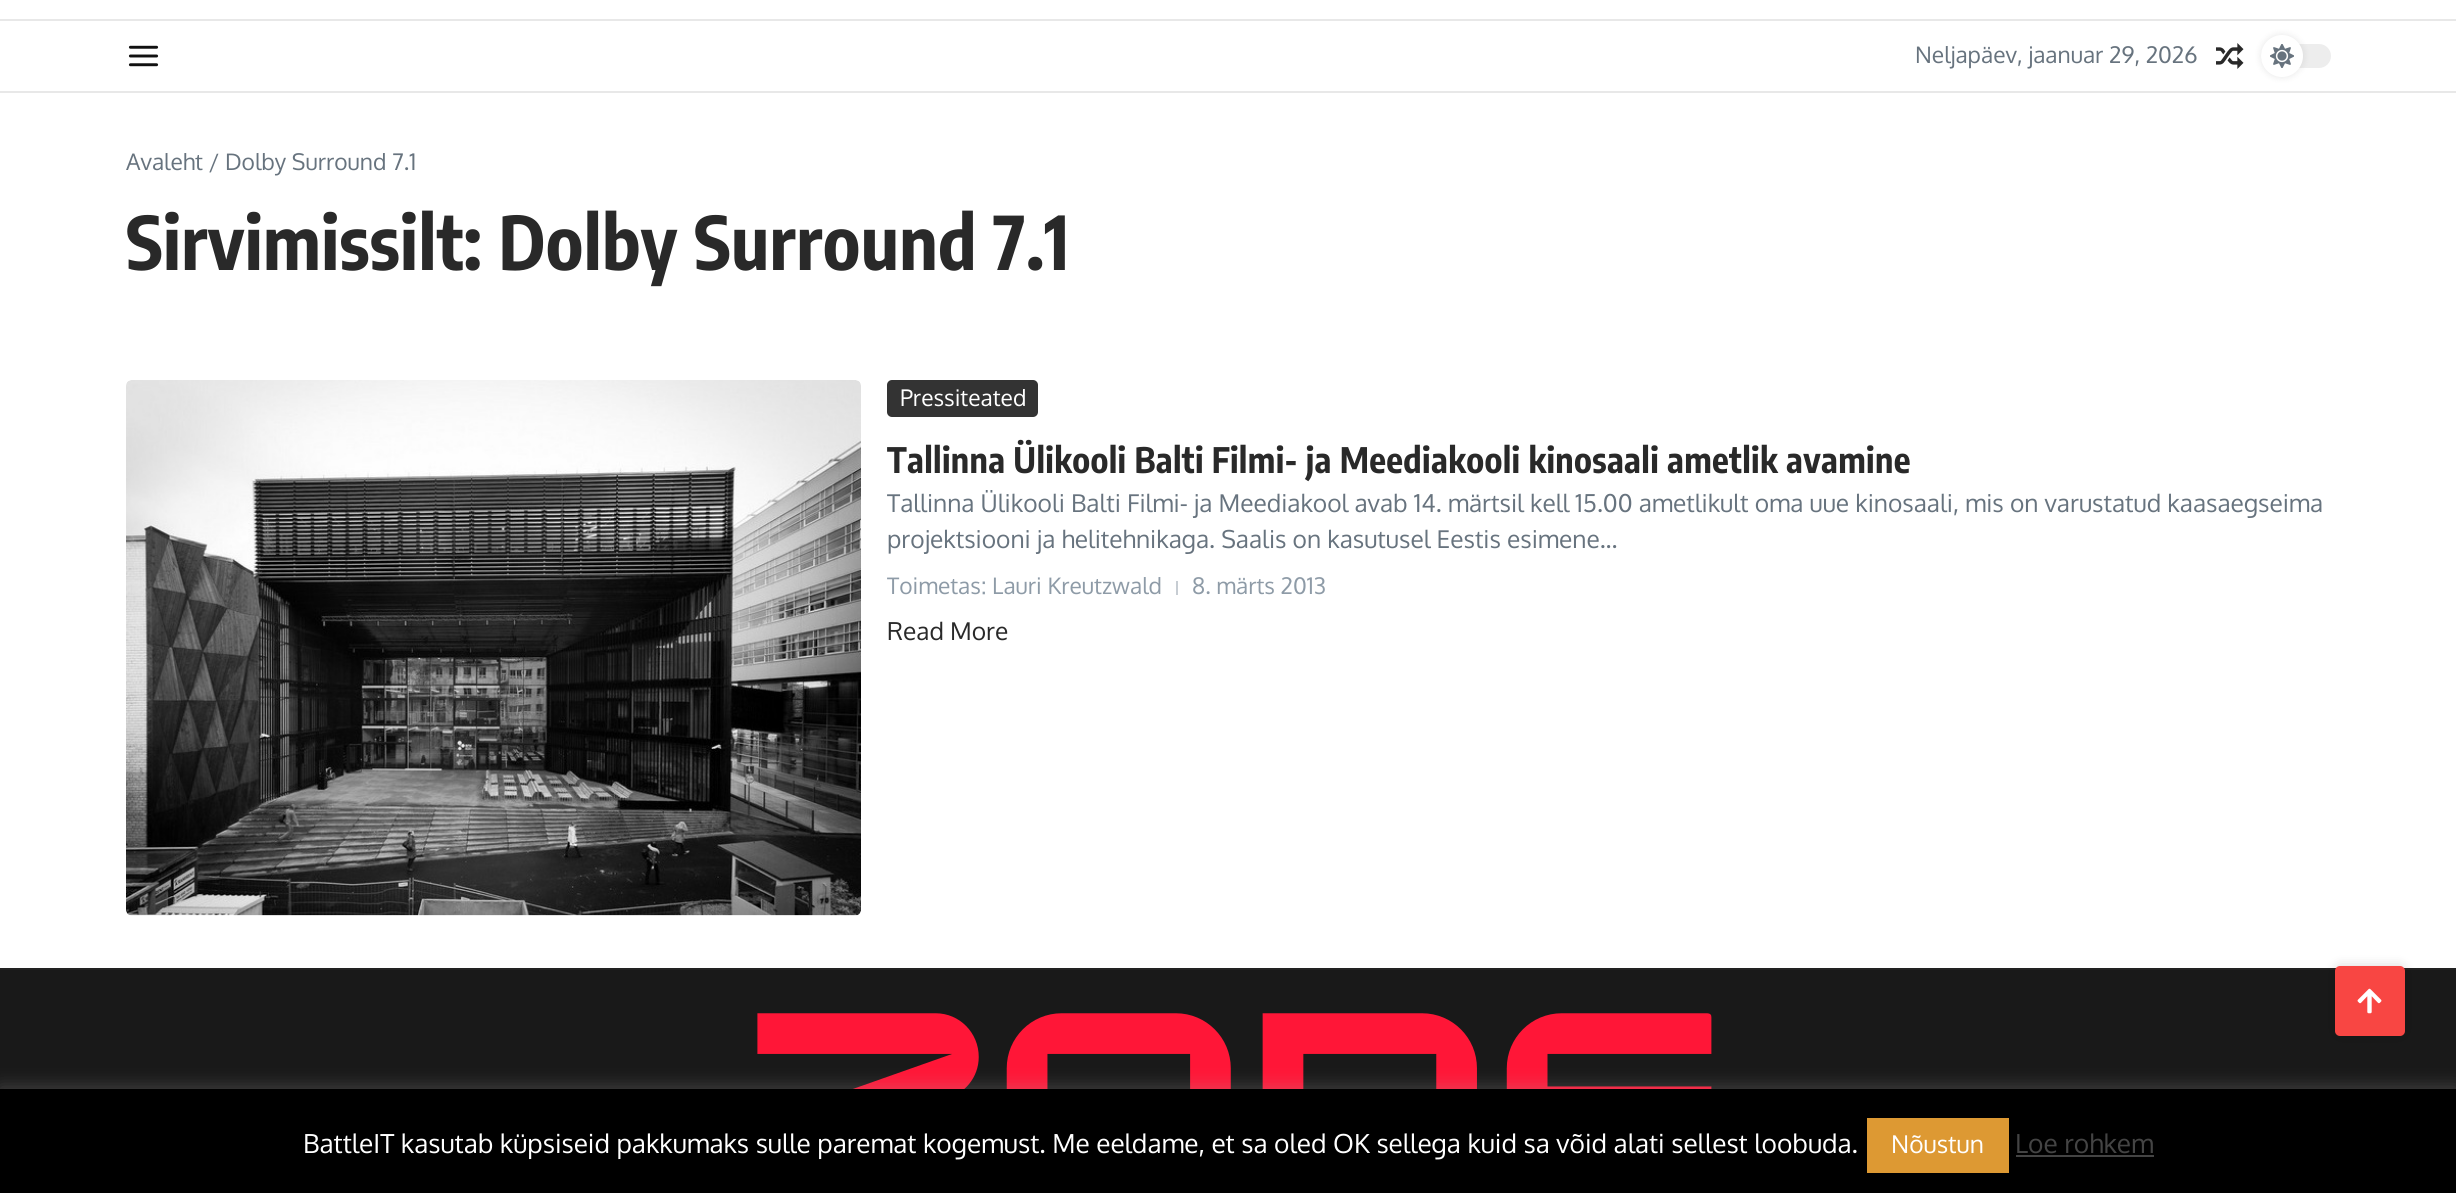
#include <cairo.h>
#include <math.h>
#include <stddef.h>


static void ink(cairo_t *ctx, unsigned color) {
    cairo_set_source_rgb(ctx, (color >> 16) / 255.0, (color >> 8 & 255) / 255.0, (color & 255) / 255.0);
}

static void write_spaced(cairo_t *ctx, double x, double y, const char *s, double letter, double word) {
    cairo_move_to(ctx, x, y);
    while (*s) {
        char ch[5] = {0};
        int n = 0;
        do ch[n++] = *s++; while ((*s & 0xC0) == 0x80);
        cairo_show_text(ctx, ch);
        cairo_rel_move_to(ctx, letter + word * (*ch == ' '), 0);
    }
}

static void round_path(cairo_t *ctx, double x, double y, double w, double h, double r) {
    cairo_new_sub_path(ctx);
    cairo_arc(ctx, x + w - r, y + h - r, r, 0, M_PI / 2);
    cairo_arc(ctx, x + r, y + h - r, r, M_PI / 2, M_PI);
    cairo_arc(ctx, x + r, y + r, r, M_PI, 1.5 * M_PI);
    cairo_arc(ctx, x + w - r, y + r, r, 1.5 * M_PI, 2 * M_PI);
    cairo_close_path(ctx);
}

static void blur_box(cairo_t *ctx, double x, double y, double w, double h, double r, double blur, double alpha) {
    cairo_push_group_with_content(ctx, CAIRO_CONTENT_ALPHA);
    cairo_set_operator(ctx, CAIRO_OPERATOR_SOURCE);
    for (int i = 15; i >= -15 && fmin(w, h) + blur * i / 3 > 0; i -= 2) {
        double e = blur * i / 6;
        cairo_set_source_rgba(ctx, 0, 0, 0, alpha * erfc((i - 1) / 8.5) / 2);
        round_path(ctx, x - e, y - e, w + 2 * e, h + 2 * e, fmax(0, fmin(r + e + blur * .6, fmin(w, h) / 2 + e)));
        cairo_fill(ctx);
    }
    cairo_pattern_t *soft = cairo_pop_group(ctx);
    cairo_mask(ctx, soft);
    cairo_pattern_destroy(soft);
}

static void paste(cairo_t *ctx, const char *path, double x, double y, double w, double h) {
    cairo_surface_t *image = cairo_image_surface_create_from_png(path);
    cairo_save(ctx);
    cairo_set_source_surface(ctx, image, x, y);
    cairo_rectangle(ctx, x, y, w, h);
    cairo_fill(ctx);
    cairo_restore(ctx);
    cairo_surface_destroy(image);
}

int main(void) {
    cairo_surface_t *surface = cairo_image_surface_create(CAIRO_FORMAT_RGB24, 2456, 1193);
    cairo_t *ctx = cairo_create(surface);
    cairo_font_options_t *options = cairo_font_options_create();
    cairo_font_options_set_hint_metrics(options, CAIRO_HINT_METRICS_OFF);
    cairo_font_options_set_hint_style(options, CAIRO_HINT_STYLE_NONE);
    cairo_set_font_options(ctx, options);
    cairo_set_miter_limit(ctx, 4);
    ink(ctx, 0xFFFFFF);
    cairo_paint(ctx);
    ink(ctx, 0xE8E8E8);
    cairo_rectangle(ctx, 0, 19, 2456, 2);
    cairo_fill(ctx);
    cairo_rectangle(ctx, 0, 91, 2456, 2);
    cairo_fill(ctx);
    paste(ctx, "media/1.png", 128, 45, 31, 22);
    cairo_select_font_face(ctx, "Oxygen", CAIRO_FONT_SLANT_NORMAL, CAIRO_FONT_WEIGHT_NORMAL);
    cairo_set_font_size(ctx, 22.75);
    ink(ctx, 0x67737E);
    cairo_move_to(ctx, 1915, 63);
    cairo_show_text(ctx, "Neljapäev, jaanuar 29, 2026");
    paste(ctx, "media/2.png", 2216, 43, 28, 26);
    ink(ctx, 0xEDEDED);
    round_path(ctx, 2261, 44, 70, 24, 12);
    cairo_fill(ctx);
    ink(ctx, 0x000000);
    blur_box(ctx, 2261, 35, 42, 42, 21, 3.5, 0.1);
    ink(ctx, 0xFFFFFF);
    cairo_arc(ctx, 2282, 56, 21, 0, 2 * M_PI);
    cairo_fill(ctx);
    paste(ctx, "media/3.png", 2270, 44, 24, 24);
    ink(ctx, 0x67737E);
    cairo_move_to(ctx, 126, 170);
    cairo_show_text(ctx, "Avaleht / Dolby Surround 7.1");
    cairo_select_font_face(ctx, "Encode Sans Condensed", CAIRO_FONT_SLANT_NORMAL, CAIRO_FONT_WEIGHT_BOLD);
    cairo_set_font_size(ctx, 73.5);
    ink(ctx, 0x292929);
    write_spaced(ctx, 126, 270, "Sirvimissilt: Dolby Surround 7.1", 0.35, 0);
    paste(ctx, "media/4.png", 126, 380, 735, 536);
    ink(ctx, 0x333333);
    round_path(ctx, 887, 380, 151, 37, 5);
    cairo_fill(ctx);
    cairo_select_font_face(ctx, "Oxygen", CAIRO_FONT_SLANT_NORMAL, CAIRO_FONT_WEIGHT_NORMAL);
    cairo_set_font_size(ctx, 22.75);
    ink(ctx, 0xFFFFFF);
    cairo_move_to(ctx, 900, 406);
    cairo_show_text(ctx, "Pressiteated");
    cairo_select_font_face(ctx, "Encode Sans Condensed", CAIRO_FONT_SLANT_NORMAL, CAIRO_FONT_WEIGHT_BOLD);
    cairo_set_font_size(ctx, 35);
    ink(ctx, 0x292929);
    write_spaced(ctx, 887, 473, "Tallinna Ülikooli Balti Filmi- ja Meediakooli kinosaali ametlik avamine", 0.35, 0);
    cairo_select_font_face(ctx, "Oxygen", CAIRO_FONT_SLANT_NORMAL, CAIRO_FONT_WEIGHT_NORMAL);
    cairo_set_font_size(ctx, 24.5);
    ink(ctx, 0x67737E);
    cairo_move_to(ctx, 887, 512);
    cairo_show_text(ctx, "Tallinna Ülikooli Balti Filmi- ja Meediakool avab 14. märtsil kell 15.00 ametlikult oma uue kinosaali, mis on varustatud kaasaegseima");
    cairo_move_to(ctx, 887, 548);
    cairo_show_text(ctx, "projektsiooni ja helitehnikaga. Saalis on kasutusel Eestis esimene...");
    cairo_set_font_size(ctx, 22.75);
    ink(ctx, 0x8E9BA7);
    cairo_move_to(ctx, 887, 594);
    cairo_show_text(ctx, "Toimetas: Lauri Kreutzwald");
    ink(ctx, 0xC7CDD3);
    cairo_rectangle(ctx, 1176, 581, 2, 14);
    cairo_fill(ctx);
    ink(ctx, 0x8E9BA7);
    cairo_move_to(ctx, 1192, 594);
    cairo_show_text(ctx, "8. märts 2013");
    cairo_set_font_size(ctx, 24.5);
    ink(ctx, 0x292929);
    cairo_move_to(ctx, 887, 640);
    cairo_show_text(ctx, "Read More");
    ink(ctx, 0x191919);
    cairo_rectangle(ctx, 0, 970, 2456, 119);
    cairo_fill(ctx);
    ink(ctx, 0x222222);
    cairo_rectangle(ctx, 0, 968, 2456, 2);
    cairo_fill(ctx);
    ink(ctx, 0x000000);
    blur_box(ctx, 2335, 966, 70, 70, 5, 6, 0.15);
    ink(ctx, 0xF84643);
    round_path(ctx, 2335, 966, 70, 70, 5);
    cairo_fill(ctx);
    paste(ctx, "media/5.png", 2357, 988, 25, 26);
    paste(ctx, "media/6.png", 757, 1013, 955, 76);
    ink(ctx, 0xACABAB);
    blur_box(ctx, 0, 1087, 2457, 105, 0, 9, 0.3);
    ink(ctx, 0x000000);
    cairo_rectangle(ctx, 0, 1089, 2456, 104);
    cairo_fill(ctx);
    cairo_set_font_size(ctx, 26.25);
    ink(ctx, 0xFFFFFF);
    cairo_move_to(ctx, 303, 1153);
    cairo_show_text(ctx, "BattleIT kasutab küpsiseid pakkumaks sulle paremat kogemust. Me eeldame, et sa oled OK sellega kuid sa võid alati sellest loobuda.");
    ink(ctx, 0xDD9933);
    cairo_rectangle(ctx, 1867, 1118, 142, 55);
    cairo_fill(ctx);
    cairo_set_font_size(ctx, 24.5);
    ink(ctx, 0xFFFFFF);
    cairo_move_to(ctx, 1891, 1153);
    cairo_show_text(ctx, "Nõustun");
    cairo_set_font_size(ctx, 26.25);
    ink(ctx, 0x444444);
    cairo_move_to(ctx, 2015, 1153);
    cairo_show_text(ctx, "Loe rohkem");
    cairo_rectangle(ctx, 2016, 1155, 138, 2);
    cairo_fill(ctx);
    cairo_surface_write_to_png(surface, "image.png");
    cairo_font_options_destroy(options);
    cairo_destroy(ctx);
    cairo_surface_destroy(surface);
    return 0;
}
